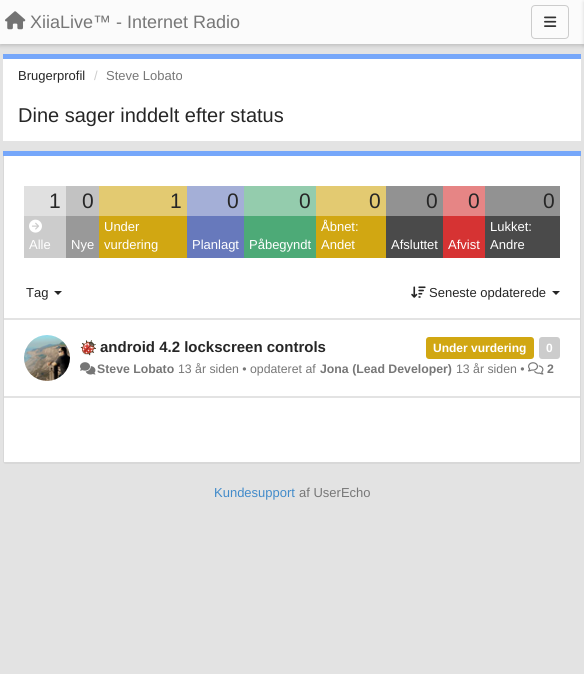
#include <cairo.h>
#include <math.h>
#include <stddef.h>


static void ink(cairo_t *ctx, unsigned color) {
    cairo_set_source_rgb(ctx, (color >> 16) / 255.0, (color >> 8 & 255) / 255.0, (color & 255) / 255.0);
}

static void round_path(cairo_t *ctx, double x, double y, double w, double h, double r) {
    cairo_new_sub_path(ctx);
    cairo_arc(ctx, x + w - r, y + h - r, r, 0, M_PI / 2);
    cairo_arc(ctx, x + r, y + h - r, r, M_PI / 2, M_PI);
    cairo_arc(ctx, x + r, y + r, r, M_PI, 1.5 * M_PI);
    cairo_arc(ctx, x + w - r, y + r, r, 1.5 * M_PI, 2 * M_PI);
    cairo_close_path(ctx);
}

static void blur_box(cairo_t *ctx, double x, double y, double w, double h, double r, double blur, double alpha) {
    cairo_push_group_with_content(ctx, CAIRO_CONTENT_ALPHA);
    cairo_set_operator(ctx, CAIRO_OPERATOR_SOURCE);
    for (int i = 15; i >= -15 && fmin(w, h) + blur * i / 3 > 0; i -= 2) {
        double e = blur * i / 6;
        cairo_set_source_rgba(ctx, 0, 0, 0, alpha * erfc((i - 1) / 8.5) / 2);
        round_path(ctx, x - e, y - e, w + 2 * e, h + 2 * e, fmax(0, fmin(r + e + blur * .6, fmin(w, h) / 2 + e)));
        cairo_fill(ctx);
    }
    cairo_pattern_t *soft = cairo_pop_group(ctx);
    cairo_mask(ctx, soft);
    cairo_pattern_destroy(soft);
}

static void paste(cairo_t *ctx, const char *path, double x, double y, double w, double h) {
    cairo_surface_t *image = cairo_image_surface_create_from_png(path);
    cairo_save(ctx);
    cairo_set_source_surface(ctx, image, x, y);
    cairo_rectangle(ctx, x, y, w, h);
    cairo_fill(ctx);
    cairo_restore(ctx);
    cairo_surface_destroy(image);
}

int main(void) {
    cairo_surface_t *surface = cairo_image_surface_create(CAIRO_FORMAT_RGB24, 584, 674);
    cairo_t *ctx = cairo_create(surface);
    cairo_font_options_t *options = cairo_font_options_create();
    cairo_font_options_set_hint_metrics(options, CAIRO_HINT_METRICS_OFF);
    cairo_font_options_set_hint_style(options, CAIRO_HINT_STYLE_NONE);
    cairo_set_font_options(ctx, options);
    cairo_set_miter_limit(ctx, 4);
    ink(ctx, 0xE3E3E3);
    cairo_paint(ctx);
    ink(ctx, 0x000000);
    blur_box(ctx, 0, 2, 584, 44, 0, 2, 0.15);
    ink(ctx, 0xFBFBFB);
    cairo_rectangle(ctx, 0, 0, 584, 44);
    cairo_fill(ctx);
    paste(ctx, "media/1.png", 5, 11, 21, 19);
    cairo_select_font_face(ctx, "Liberation Sans", CAIRO_FONT_SLANT_NORMAL, CAIRO_FONT_WEIGHT_NORMAL);
    cairo_set_font_size(ctx, 18);
    ink(ctx, 0x777777);
    cairo_move_to(ctx, 30, 28);
    cairo_show_text(ctx, "XiiaLive™ - Internet Radio");
    round_path(ctx, 531.5, 5.5, 37, 33, 3.5);
    ink(ctx, 0xCCCCCC);
    cairo_set_line_width(ctx, 1);
    cairo_stroke(ctx);
    paste(ctx, "media/2.png", 544, 16, 13, 11);
    ink(ctx, 0x000000);
    blur_box(ctx, 584, 2, 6, 44, 0, 2, 0.15);
    ink(ctx, 0xFFFFFF);
    cairo_rectangle(ctx, 3, 59, 578, 82);
    cairo_fill(ctx);
    ink(ctx, 0x76A7FA);
    cairo_rectangle(ctx, 3, 54, 578, 5);
    cairo_fill(ctx);
    cairo_set_font_size(ctx, 13);
    ink(ctx, 0x262626);
    cairo_move_to(ctx, 18, 80);
    cairo_show_text(ctx, "Brugerprofil");
    ink(ctx, 0xCCCCCC);
    cairo_move_to(ctx, 94, 80);
    cairo_show_text(ctx, "/");
    ink(ctx, 0x777777);
    cairo_move_to(ctx, 106, 80);
    cairo_show_text(ctx, "Steve Lobato");
    cairo_set_font_size(ctx, 20);
    ink(ctx, 0x262626);
    cairo_move_to(ctx, 18, 122);
    cairo_show_text(ctx, "Dine sager inddelt efter status");
    ink(ctx, 0x76A7FA);
    cairo_rectangle(ctx, 3, 151, 578, 5);
    cairo_fill(ctx);
    ink(ctx, 0xD8D8D8);
    cairo_set_fill_rule(ctx, CAIRO_FILL_RULE_EVEN_ODD);
    cairo_new_path(ctx);
    cairo_move_to(ctx, 3, 156);
    cairo_line_to(ctx, 581, 156);
    cairo_line_to(ctx, 581, 461);
    cairo_curve_to(ctx, 581, 463, 580, 464, 578, 464);
    cairo_line_to(ctx, 6, 464);
    cairo_curve_to(ctx, 4, 464, 3, 463, 3, 461);
    cairo_close_path(ctx);
    cairo_move_to(ctx, 4, 156);
    cairo_line_to(ctx, 580, 156);
    cairo_line_to(ctx, 580, 461);
    cairo_curve_to(ctx, 580, 462, 579, 462, 578, 462);
    cairo_line_to(ctx, 6, 462);
    cairo_curve_to(ctx, 5, 462, 4, 462, 4, 461);
    cairo_close_path(ctx);
    cairo_fill(ctx);
    ink(ctx, 0xFFFFFF);
    cairo_rectangle(ctx, 4, 156, 576, 162);
    cairo_fill(ctx);
    ink(ctx, 0xE0E0E0);
    cairo_rectangle(ctx, 24, 186, 42, 30);
    cairo_fill(ctx);
    cairo_set_font_size(ctx, 21);
    ink(ctx, 0x262626);
    cairo_move_to(ctx, 49, 208);
    cairo_show_text(ctx, "1");
    ink(ctx, 0xC2C2C2);
    cairo_rectangle(ctx, 66, 186, 33, 30);
    cairo_fill(ctx);
    ink(ctx, 0x262626);
    cairo_move_to(ctx, 82, 208);
    cairo_show_text(ctx, "0");
    ink(ctx, 0xE3CA71);
    cairo_rectangle(ctx, 99, 186, 88, 30);
    cairo_fill(ctx);
    ink(ctx, 0x262626);
    cairo_move_to(ctx, 170, 208);
    cairo_show_text(ctx, "1");
    ink(ctx, 0xA4AFD7);
    cairo_rectangle(ctx, 187, 186, 57, 30);
    cairo_fill(ctx);
    ink(ctx, 0x262626);
    cairo_move_to(ctx, 227, 208);
    cairo_show_text(ctx, "0");
    ink(ctx, 0x94CCAD);
    cairo_rectangle(ctx, 244, 186, 72, 30);
    cairo_fill(ctx);
    ink(ctx, 0x262626);
    cairo_move_to(ctx, 299, 208);
    cairo_show_text(ctx, "0");
    ink(ctx, 0xE3CA71);
    cairo_rectangle(ctx, 316, 186, 70, 30);
    cairo_fill(ctx);
    ink(ctx, 0x262626);
    cairo_move_to(ctx, 369, 208);
    cairo_show_text(ctx, "0");
    ink(ctx, 0x929292);
    cairo_rectangle(ctx, 386, 186, 57, 30);
    cairo_fill(ctx);
    ink(ctx, 0x262626);
    cairo_move_to(ctx, 426, 208);
    cairo_show_text(ctx, "0");
    ink(ctx, 0xE68585);
    cairo_rectangle(ctx, 443, 186, 42, 30);
    cairo_fill(ctx);
    ink(ctx, 0x262626);
    cairo_move_to(ctx, 468, 208);
    cairo_show_text(ctx, "0");
    ink(ctx, 0x929292);
    cairo_rectangle(ctx, 485, 186, 75, 30);
    cairo_fill(ctx);
    ink(ctx, 0x262626);
    cairo_move_to(ctx, 543, 208);
    cairo_show_text(ctx, "0");
    ink(ctx, 0xCCCCCC);
    cairo_rectangle(ctx, 24, 216, 42, 42);
    cairo_fill(ctx);
    paste(ctx, "media/3.png", 29, 219, 13, 14);
    cairo_set_font_size(ctx, 13);
    ink(ctx, 0xFFFFFF);
    cairo_move_to(ctx, 29, 249);
    cairo_show_text(ctx, "Alle");
    ink(ctx, 0x999999);
    cairo_rectangle(ctx, 66, 216, 33, 42);
    cairo_fill(ctx);
    ink(ctx, 0xFFFFFF);
    cairo_move_to(ctx, 71, 249);
    cairo_show_text(ctx, "Nye");
    ink(ctx, 0xD1A712);
    cairo_rectangle(ctx, 99, 216, 88, 42);
    cairo_fill(ctx);
    ink(ctx, 0xFFFFFF);
    cairo_move_to(ctx, 104, 231);
    cairo_show_text(ctx, "Under");
    cairo_move_to(ctx, 104, 249);
    cairo_show_text(ctx, "vurdering");
    ink(ctx, 0x6779BC);
    cairo_rectangle(ctx, 187, 216, 57, 42);
    cairo_fill(ctx);
    ink(ctx, 0xFFFFFF);
    cairo_move_to(ctx, 192, 249);
    cairo_show_text(ctx, "Planlagt");
    ink(ctx, 0x4DAA77);
    cairo_rectangle(ctx, 244, 216, 72, 42);
    cairo_fill(ctx);
    ink(ctx, 0xFFFFFF);
    cairo_move_to(ctx, 249, 249);
    cairo_show_text(ctx, "Påbegyndt");
    ink(ctx, 0xD1A712);
    cairo_rectangle(ctx, 316, 216, 70, 42);
    cairo_fill(ctx);
    ink(ctx, 0xFFFFFF);
    cairo_move_to(ctx, 321, 231);
    cairo_show_text(ctx, "Åbnet:");
    cairo_move_to(ctx, 321, 249);
    cairo_show_text(ctx, "Andet");
    ink(ctx, 0x4A4A4A);
    cairo_rectangle(ctx, 386, 216, 57, 42);
    cairo_fill(ctx);
    ink(ctx, 0xFFFFFF);
    cairo_move_to(ctx, 391, 249);
    cairo_show_text(ctx, "Afsluttet");
    ink(ctx, 0xD63333);
    cairo_rectangle(ctx, 443, 216, 42, 42);
    cairo_fill(ctx);
    ink(ctx, 0xFFFFFF);
    cairo_move_to(ctx, 448, 249);
    cairo_show_text(ctx, "Afvist");
    ink(ctx, 0x4A4A4A);
    cairo_rectangle(ctx, 485, 216, 75, 42);
    cairo_fill(ctx);
    ink(ctx, 0xFFFFFF);
    cairo_move_to(ctx, 490, 231);
    cairo_show_text(ctx, "Lukket:");
    cairo_move_to(ctx, 490, 249);
    cairo_show_text(ctx, "Andre");
    ink(ctx, 0x262626);
    cairo_move_to(ctx, 26, 297);
    cairo_show_text(ctx, "Tag");
    cairo_set_fill_rule(ctx, CAIRO_FILL_RULE_WINDING);
    cairo_new_path(ctx);
    cairo_move_to(ctx, 54, 291);
    cairo_line_to(ctx, 62, 291);
    cairo_line_to(ctx, 58, 295);
    cairo_close_path(ctx);
    cairo_fill(ctx);
    paste(ctx, "media/4.png", 411, 286, 15, 12);
    cairo_move_to(ctx, 429, 297);
    cairo_show_text(ctx, "Seneste opdaterede");
    cairo_new_path(ctx);
    cairo_move_to(ctx, 552, 291);
    cairo_line_to(ctx, 560, 291);
    cairo_line_to(ctx, 556, 295);
    cairo_close_path(ctx);
    cairo_fill(ctx);
    ink(ctx, 0xFFFFFF);
    cairo_rectangle(ctx, 4, 320, 576, 76);
    cairo_fill(ctx);
    paste(ctx, "media/5.png", 24, 335, 46, 46);
    paste(ctx, "media/6.png", 80, 340, 16, 16);
    cairo_select_font_face(ctx, "Liberation Sans", CAIRO_FONT_SLANT_NORMAL, CAIRO_FONT_WEIGHT_BOLD);
    cairo_set_font_size(ctx, 15);
    ink(ctx, 0x262626);
    cairo_move_to(ctx, 100, 352);
    cairo_show_text(ctx, "android 4.2 lockscreen controls");
    ink(ctx, 0xD1A712);
    round_path(ctx, 426, 337, 108, 22, 3);
    cairo_fill(ctx);
    cairo_set_font_size(ctx, 12);
    ink(ctx, 0xFFFFFF);
    cairo_move_to(ctx, 433, 352);
    cairo_show_text(ctx, "Under vurdering");
    ink(ctx, 0xCCCCCC);
    round_path(ctx, 539, 337, 21, 22, 3);
    cairo_fill(ctx);
    ink(ctx, 0xFFFFFF);
    cairo_move_to(ctx, 546, 352);
    cairo_show_text(ctx, "0");
    paste(ctx, "media/7.png", 80, 362, 16, 13);
    cairo_set_font_size(ctx, 12.3);
    ink(ctx, 0x777777);
    cairo_move_to(ctx, 97, 373);
    cairo_show_text(ctx, "Steve Lobato");
    cairo_select_font_face(ctx, "Liberation Sans", CAIRO_FONT_SLANT_NORMAL, CAIRO_FONT_WEIGHT_NORMAL);
    cairo_move_to(ctx, 178, 373);
    cairo_show_text(ctx, "13 år siden • opdateret af");
    cairo_select_font_face(ctx, "Liberation Sans", CAIRO_FONT_SLANT_NORMAL, CAIRO_FONT_WEIGHT_BOLD);
    cairo_move_to(ctx, 320, 373);
    cairo_show_text(ctx, "Jona (Lead Developer)");
    cairo_select_font_face(ctx, "Liberation Sans", CAIRO_FONT_SLANT_NORMAL, CAIRO_FONT_WEIGHT_NORMAL);
    cairo_move_to(ctx, 456, 373);
    cairo_show_text(ctx, "13 år siden •");
    paste(ctx, "media/8.png", 528, 362, 16, 13);
    cairo_select_font_face(ctx, "Liberation Sans", CAIRO_FONT_SLANT_NORMAL, CAIRO_FONT_WEIGHT_BOLD);
    cairo_move_to(ctx, 547, 373);
    cairo_show_text(ctx, "2");
    ink(ctx, 0xFFFFFF);
    cairo_rectangle(ctx, 4, 398, 576, 64);
    cairo_fill(ctx);
    cairo_select_font_face(ctx, "Liberation Sans", CAIRO_FONT_SLANT_NORMAL, CAIRO_FONT_WEIGHT_NORMAL);
    cairo_set_font_size(ctx, 13);
    ink(ctx, 0x428BCA);
    cairo_move_to(ctx, 214, 497);
    cairo_show_text(ctx, "Kundesupport");
    ink(ctx, 0x777777);
    cairo_move_to(ctx, 299, 497);
    cairo_show_text(ctx, "af UserEcho");
    cairo_surface_write_to_png(surface, "image.png");
    cairo_font_options_destroy(options);
    cairo_destroy(ctx);
    cairo_surface_destroy(surface);
    return 0;
}
